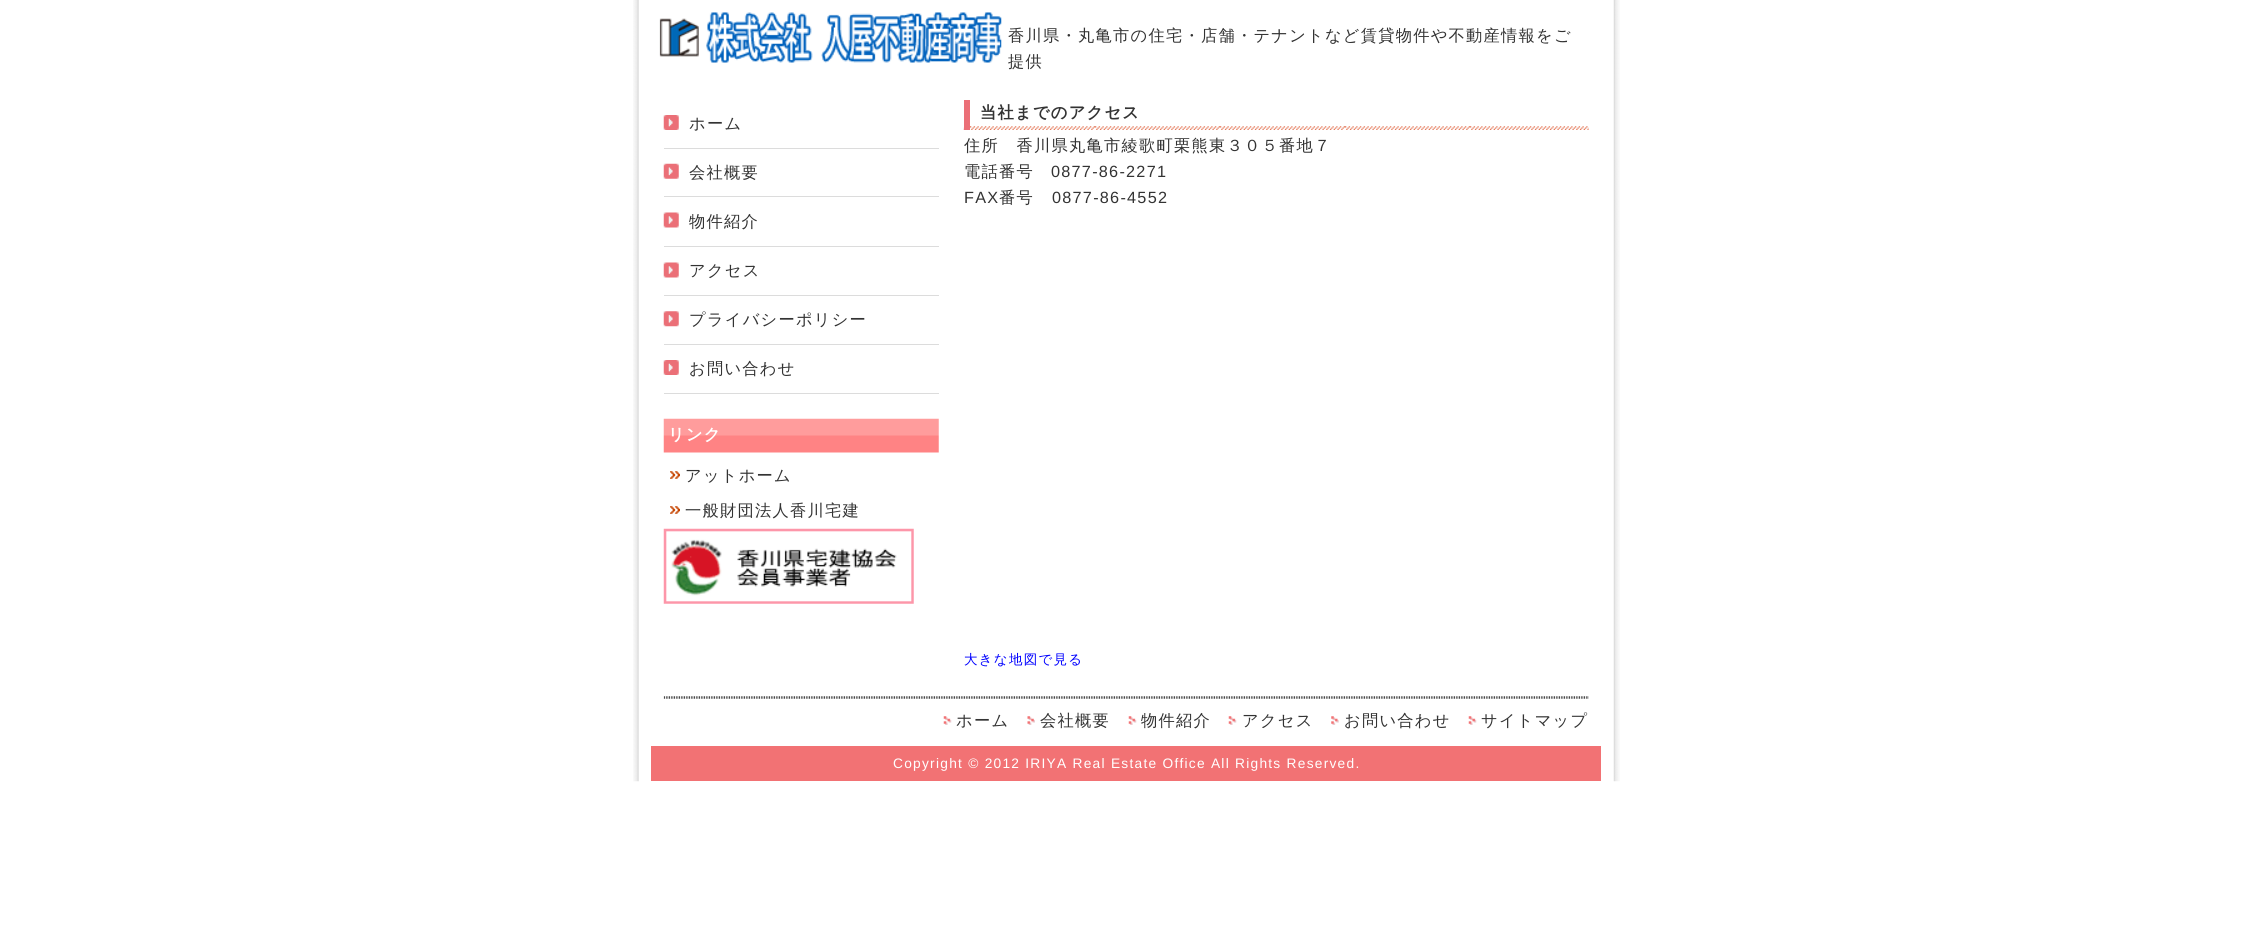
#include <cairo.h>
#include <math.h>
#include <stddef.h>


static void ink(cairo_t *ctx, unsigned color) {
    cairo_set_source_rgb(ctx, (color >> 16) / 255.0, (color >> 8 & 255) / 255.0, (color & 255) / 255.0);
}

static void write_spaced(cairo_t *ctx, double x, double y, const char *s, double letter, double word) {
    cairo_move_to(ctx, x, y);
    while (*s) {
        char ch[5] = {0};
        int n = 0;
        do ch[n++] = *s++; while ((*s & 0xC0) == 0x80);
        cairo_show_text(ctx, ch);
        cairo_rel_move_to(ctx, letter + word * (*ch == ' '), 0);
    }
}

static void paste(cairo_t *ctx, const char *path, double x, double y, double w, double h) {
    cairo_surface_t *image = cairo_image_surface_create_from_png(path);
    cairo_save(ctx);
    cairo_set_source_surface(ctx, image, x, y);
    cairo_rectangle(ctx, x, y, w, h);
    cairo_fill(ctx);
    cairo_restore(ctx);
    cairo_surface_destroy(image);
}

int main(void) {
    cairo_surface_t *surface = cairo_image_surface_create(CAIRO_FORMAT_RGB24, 2252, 952);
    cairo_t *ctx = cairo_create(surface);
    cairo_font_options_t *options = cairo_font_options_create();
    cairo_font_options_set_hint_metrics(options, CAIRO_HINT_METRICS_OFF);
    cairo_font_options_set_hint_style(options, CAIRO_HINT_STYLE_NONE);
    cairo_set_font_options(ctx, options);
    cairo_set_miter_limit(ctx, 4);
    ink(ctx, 0xFFFFFF);
    cairo_paint(ctx);
    paste(ctx, "media/1.png", 633, 0, 6, 782);
    paste(ctx, "media/2.png", 1613, 0, 7, 782);
    paste(ctx, "media/3.png", 659, 12, 343, 51);
    cairo_select_font_face(ctx, "WenQuanYi Zen Hei Medium", CAIRO_FONT_SLANT_NORMAL, CAIRO_FONT_WEIGHT_NORMAL);
    cairo_set_font_size(ctx, 16.25);
    ink(ctx, 0x333333);
    write_spaced(ctx, 1008, 41, "香川県・丸亀市の住宅・店舗・テナントなど賃貸物件や不動産情報をご", 1.25, 0);
    write_spaced(ctx, 1008, 67, "提供", 1.25, 0);
    paste(ctx, "media/4.png", 663, 115, 16, 15);
    ink(ctx, 0xDCDCDC);
    cairo_rectangle(ctx, 664, 148, 275, 1);
    cairo_fill(ctx);
    ink(ctx, 0x333333);
    write_spaced(ctx, 689, 129, "ホーム", 1.25, 0);
    paste(ctx, "media/5.png", 663, 163, 16, 16);
    ink(ctx, 0xDCDCDC);
    cairo_rectangle(ctx, 664, 196, 275, 1);
    cairo_fill(ctx);
    ink(ctx, 0x333333);
    write_spaced(ctx, 689, 178, "会社概要", 1.25, 0);
    paste(ctx, "media/6.png", 663, 212, 16, 16);
    ink(ctx, 0xDCDCDC);
    cairo_rectangle(ctx, 664, 246, 275, 1);
    cairo_fill(ctx);
    ink(ctx, 0x333333);
    write_spaced(ctx, 689, 227, "物件紹介", 1.25, 0);
    paste(ctx, "media/6.png", 663, 262, 16, 16);
    ink(ctx, 0xDCDCDC);
    cairo_rectangle(ctx, 664, 295, 275, 1);
    cairo_fill(ctx);
    ink(ctx, 0x333333);
    write_spaced(ctx, 689, 276, "アクセス", 1.25, 0);
    paste(ctx, "media/7.png", 663, 311, 16, 16);
    ink(ctx, 0xDCDCDC);
    cairo_rectangle(ctx, 664, 344, 275, 1);
    cairo_fill(ctx);
    ink(ctx, 0x333333);
    write_spaced(ctx, 689, 325, "プライバシーポリシー", 1.25, 0);
    paste(ctx, "media/4.png", 663, 360, 16, 15);
    ink(ctx, 0xDCDCDC);
    cairo_rectangle(ctx, 664, 393, 275, 1);
    cairo_fill(ctx);
    ink(ctx, 0x333333);
    write_spaced(ctx, 689, 374, "お問い合わせ", 1.25, 0);
    paste(ctx, "media/8.png", 663, 418, 276, 35);
    cairo_select_font_face(ctx, "WenQuanYi Zen Hei", CAIRO_FONT_SLANT_NORMAL, CAIRO_FONT_WEIGHT_BOLD);
    ink(ctx, 0xFFFFFF);
    write_spaced(ctx, 668, 440, "リンク", 1.25, 0);
    paste(ctx, "media/9.png", 670, 471, 10, 8);
    cairo_select_font_face(ctx, "WenQuanYi Zen Hei Medium", CAIRO_FONT_SLANT_NORMAL, CAIRO_FONT_WEIGHT_NORMAL);
    ink(ctx, 0x333333);
    write_spaced(ctx, 685, 481, "アットホーム", 1.25, 0);
    paste(ctx, "media/9.png", 670, 506, 10, 8);
    write_spaced(ctx, 685, 516, "一般財団法人香川宅建", 1.25, 0);
    paste(ctx, "media/10.png", 663, 528, 251, 76);
    paste(ctx, "media/11.png", 963, 126, 626, 4);
    ink(ctx, 0xEB6F77);
    cairo_rectangle(ctx, 964, 100, 6, 30);
    cairo_fill(ctx);
    cairo_select_font_face(ctx, "WenQuanYi Zen Hei", CAIRO_FONT_SLANT_NORMAL, CAIRO_FONT_WEIGHT_BOLD);
    ink(ctx, 0x333333);
    write_spaced(ctx, 980, 118, "当社までのアクセス", 1.25, 0);
    cairo_select_font_face(ctx, "WenQuanYi Zen Hei Medium", CAIRO_FONT_SLANT_NORMAL, CAIRO_FONT_WEIGHT_NORMAL);
    write_spaced(ctx, 964, 151, "住所　香川県丸亀市綾歌町栗熊東３０５番地７", 1.25, 0);
    write_spaced(ctx, 964, 177, "電話番号", 1.25, 0);
    cairo_select_font_face(ctx, "Liberation Sans", CAIRO_FONT_SLANT_NORMAL, CAIRO_FONT_WEIGHT_NORMAL);
    write_spaced(ctx, 1051, 177, "0877-86-2271", 1.25, 0);
    write_spaced(ctx, 964, 203, "FAX", 1.25, 0);
    cairo_select_font_face(ctx, "WenQuanYi Zen Hei Medium", CAIRO_FONT_SLANT_NORMAL, CAIRO_FONT_WEIGHT_NORMAL);
    write_spaced(ctx, 999, 203, "番号", 1.25, 0);
    cairo_select_font_face(ctx, "Liberation Sans", CAIRO_FONT_SLANT_NORMAL, CAIRO_FONT_WEIGHT_NORMAL);
    write_spaced(ctx, 1052, 203, "0877-86-4552", 1.25, 0);
    cairo_select_font_face(ctx, "WenQuanYi Zen Hei Medium", CAIRO_FONT_SLANT_NORMAL, CAIRO_FONT_WEIGHT_NORMAL);
    cairo_set_font_size(ctx, 13.5);
    ink(ctx, 0x0000FF);
    write_spaced(ctx, 964, 664, "大きな地図で見る", 1.25, 0);
    paste(ctx, "media/12.png", 663, 696, 926, 3);
    paste(ctx, "media/13.png", 943, 716, 9, 9);
    cairo_set_font_size(ctx, 16.25);
    ink(ctx, 0x333333);
    write_spaced(ctx, 956, 726, "ホーム", 1.25, 0);
    paste(ctx, "media/14.png", 1027, 716, 8, 9);
    write_spaced(ctx, 1040, 726, "会社概要", 1.25, 0);
    paste(ctx, "media/13.png", 1128, 716, 9, 9);
    write_spaced(ctx, 1141, 726, "物件紹介", 1.25, 0);
    paste(ctx, "media/15.png", 1228, 716, 9, 9);
    write_spaced(ctx, 1242, 726, "アクセス", 1.25, 0);
    paste(ctx, "media/16.png", 1331, 716, 8, 9);
    write_spaced(ctx, 1344, 726, "お問い合わせ", 1.25, 0);
    paste(ctx, "media/15.png", 1468, 716, 9, 9);
    write_spaced(ctx, 1481, 726, "サイトマップ", 1.25, 0);
    ink(ctx, 0xF27274);
    cairo_rectangle(ctx, 651, 746, 950, 35);
    cairo_fill(ctx);
    cairo_select_font_face(ctx, "Liberation Sans", CAIRO_FONT_SLANT_NORMAL, CAIRO_FONT_WEIGHT_NORMAL);
    cairo_set_font_size(ctx, 13.75);
    ink(ctx, 0xFFFFFF);
    write_spaced(ctx, 893, 768, "Copyright © 2012 IRIYA Real Estate Office All Rights Reserved.", 1.25, 0);
    cairo_surface_write_to_png(surface, "image.png");
    cairo_font_options_destroy(options);
    cairo_destroy(ctx);
    cairo_surface_destroy(surface);
    return 0;
}
